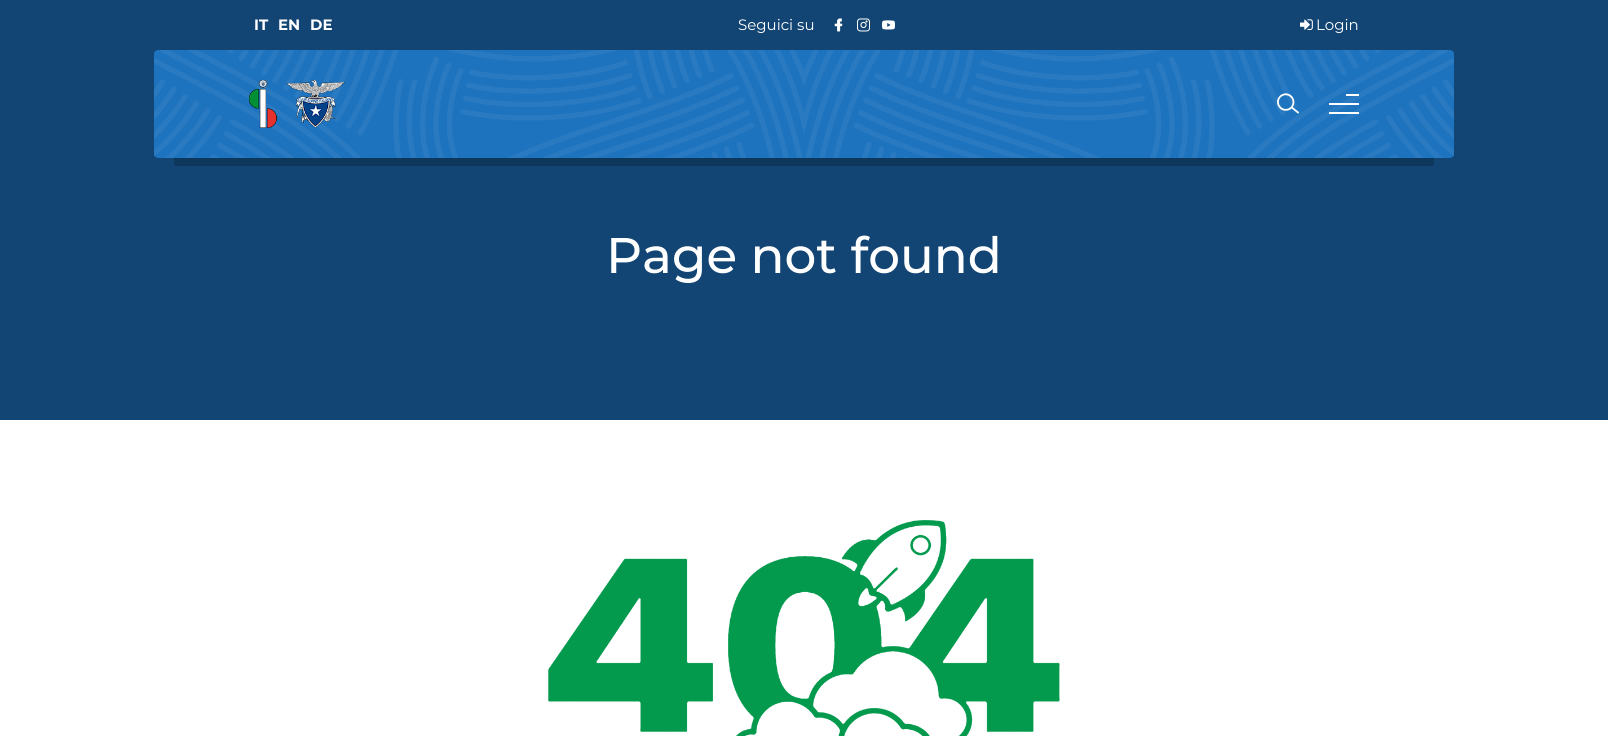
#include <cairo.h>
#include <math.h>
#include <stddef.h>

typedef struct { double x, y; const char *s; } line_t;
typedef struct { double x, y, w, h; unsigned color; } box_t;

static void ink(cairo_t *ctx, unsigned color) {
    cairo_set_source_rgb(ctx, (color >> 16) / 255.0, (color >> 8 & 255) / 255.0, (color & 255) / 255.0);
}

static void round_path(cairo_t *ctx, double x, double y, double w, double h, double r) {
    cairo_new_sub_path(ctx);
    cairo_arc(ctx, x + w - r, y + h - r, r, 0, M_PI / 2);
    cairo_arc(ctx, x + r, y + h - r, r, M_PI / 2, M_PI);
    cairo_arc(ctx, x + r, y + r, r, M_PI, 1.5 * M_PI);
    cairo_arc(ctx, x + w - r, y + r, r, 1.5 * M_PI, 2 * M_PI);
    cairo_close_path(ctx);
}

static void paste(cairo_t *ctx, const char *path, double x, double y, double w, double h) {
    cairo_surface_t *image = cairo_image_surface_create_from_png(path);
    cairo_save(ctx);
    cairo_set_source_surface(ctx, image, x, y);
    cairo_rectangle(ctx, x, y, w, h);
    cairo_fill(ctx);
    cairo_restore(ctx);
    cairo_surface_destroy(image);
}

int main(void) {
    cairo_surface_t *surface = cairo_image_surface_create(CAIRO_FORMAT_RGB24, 1608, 736);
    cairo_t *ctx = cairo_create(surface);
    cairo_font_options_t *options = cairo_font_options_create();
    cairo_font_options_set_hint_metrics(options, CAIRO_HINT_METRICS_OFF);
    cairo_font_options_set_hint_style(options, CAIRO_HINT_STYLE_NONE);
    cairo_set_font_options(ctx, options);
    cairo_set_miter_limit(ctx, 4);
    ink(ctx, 0xFFFFFF);
    cairo_paint(ctx);
    ink(ctx, 0x124573);
    cairo_rectangle(ctx, 0, 0, 1608, 420);
    cairo_fill(ctx);
    cairo_select_font_face(ctx, "Montserrat", CAIRO_FONT_SLANT_NORMAL, CAIRO_FONT_WEIGHT_BOLD);
    cairo_set_font_size(ctx, 15);
    ink(ctx, 0xFFFFFF);
    {
        static const line_t items[] = {
            {254, 30, "IT"},
            {278, 30, "EN"},
            {310, 30, "DE"},
        };
        for (size_t i = 0; i < sizeof items / sizeof *items; i++) {
            cairo_move_to(ctx, items[i].x, items[i].y);
            cairo_show_text(ctx, items[i].s);
        }
    }
    cairo_select_font_face(ctx, "Montserrat", CAIRO_FONT_SLANT_NORMAL, CAIRO_FONT_WEIGHT_NORMAL);
    cairo_move_to(ctx, 738, 30);
    cairo_show_text(ctx, "Seguici su");
    paste(ctx, "media/1.png", 834, 18, 9, 14);
    paste(ctx, "media/2.png", 857, 18, 13, 14);
    paste(ctx, "media/3.png", 882, 20, 13, 10);
    paste(ctx, "media/4.png", 1300, 19, 13, 11);
    cairo_move_to(ctx, 1316, 30);
    cairo_show_text(ctx, "Login");
    ink(ctx, 0x1E73BE);
    round_path(ctx, 154, 50, 1300, 108, 4);
    cairo_fill(ctx);
    paste(ctx, "media/5.png", 154, 50, 1300, 108);
    paste(ctx, "media/6.png", 249, 80, 96, 48);
    paste(ctx, "media/7.png", 1277, 93, 22, 21);
    {
        static const box_t items[] = {
            {1346, 94, 13, 2, 0xFFFFFF},
            {1329, 103, 30, 2, 0xFFFFFF},
            {1329, 112, 30, 2, 0xFFFFFF},
        };
        for (size_t i = 0; i < sizeof items / sizeof *items; i++) {
            ink(ctx, items[i].color);
            cairo_rectangle(ctx, items[i].x, items[i].y, items[i].w, items[i].h);
            cairo_fill(ctx);
        }
    }
    ink(ctx, 0x0E375C);
    cairo_new_path(ctx);
    cairo_move_to(ctx, 174, 158);
    cairo_line_to(ctx, 1434, 158);
    cairo_line_to(ctx, 1434, 164);
    cairo_curve_to(ctx, 1434, 165, 1433, 166, 1432, 166);
    cairo_line_to(ctx, 176, 166);
    cairo_curve_to(ctx, 175, 166, 174, 165, 174, 164);
    cairo_close_path(ctx);
    cairo_fill(ctx);
    cairo_select_font_face(ctx, "Montserrat Thin", CAIRO_FONT_SLANT_NORMAL, CAIRO_FONT_WEIGHT_NORMAL);
    cairo_set_font_size(ctx, 50);
    ink(ctx, 0xFFFFFF);
    cairo_move_to(ctx, 606, 273);
    cairo_show_text(ctx, "Page not found");
    paste(ctx, "media/8.png", 548, 520, 512, 216);
    cairo_surface_write_to_png(surface, "image.png");
    cairo_font_options_destroy(options);
    cairo_destroy(ctx);
    cairo_surface_destroy(surface);
    return 0;
}
